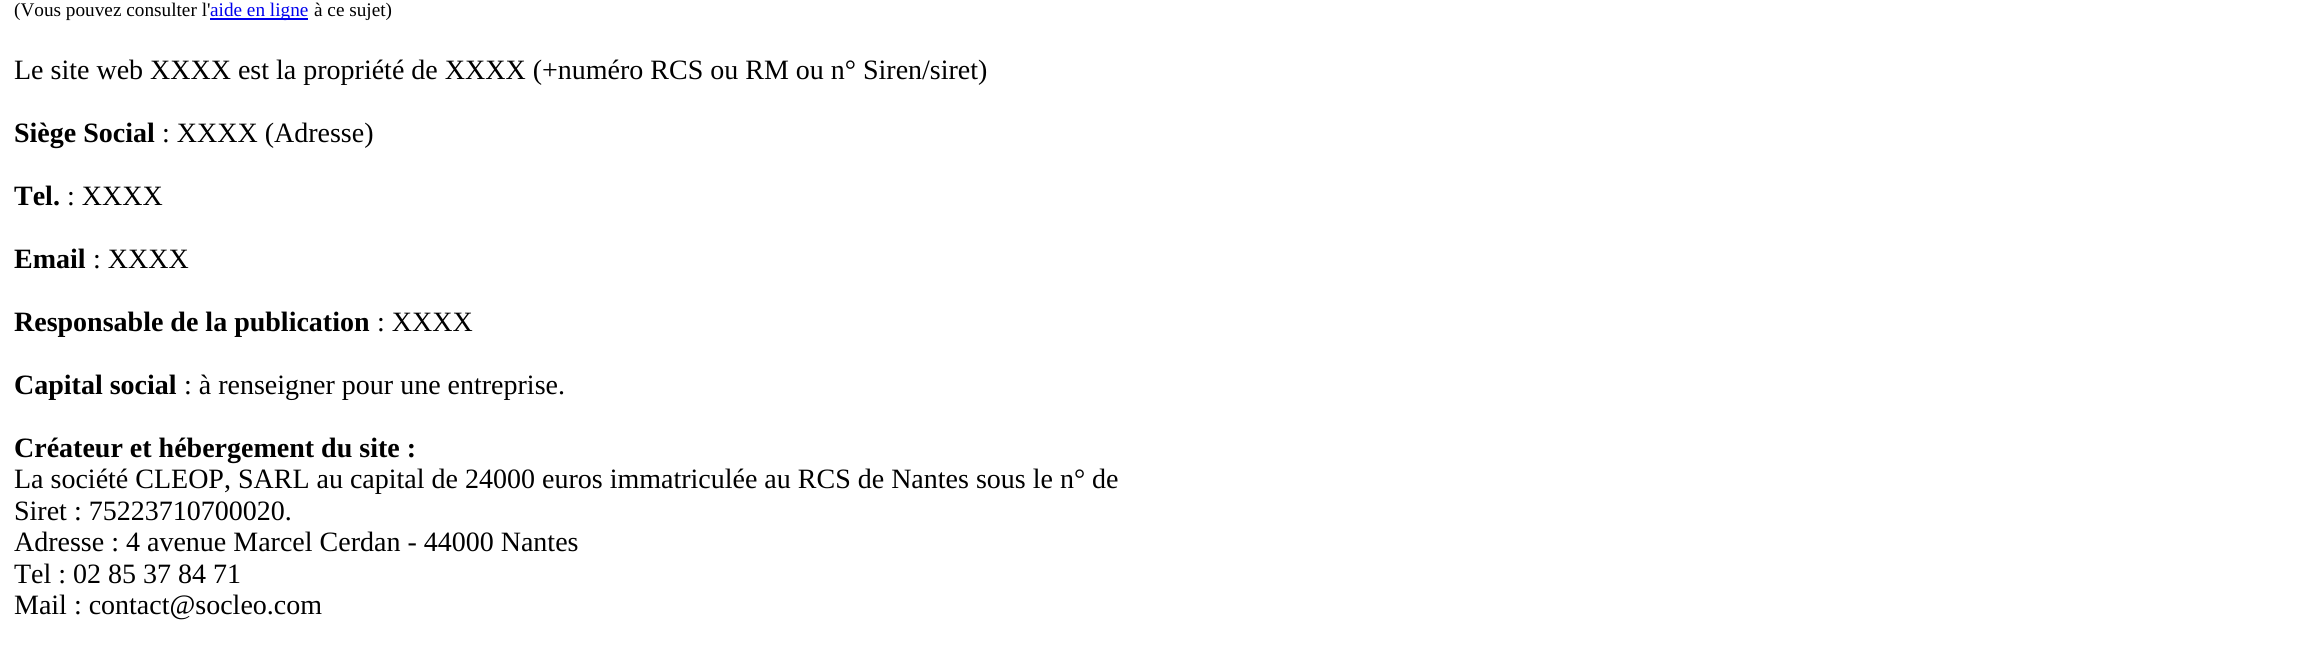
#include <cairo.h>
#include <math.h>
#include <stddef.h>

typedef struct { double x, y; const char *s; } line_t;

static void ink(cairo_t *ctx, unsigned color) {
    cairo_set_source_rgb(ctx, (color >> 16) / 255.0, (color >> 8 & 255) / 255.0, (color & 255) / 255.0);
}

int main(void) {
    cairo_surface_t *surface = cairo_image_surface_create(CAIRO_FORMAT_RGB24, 2322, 654);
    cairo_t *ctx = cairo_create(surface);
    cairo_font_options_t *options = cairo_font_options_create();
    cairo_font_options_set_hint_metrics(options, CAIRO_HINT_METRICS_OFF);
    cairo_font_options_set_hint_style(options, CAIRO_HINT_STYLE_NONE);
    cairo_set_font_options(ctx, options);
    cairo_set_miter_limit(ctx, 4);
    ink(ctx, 0xFFFFFF);
    cairo_paint(ctx);
    cairo_select_font_face(ctx, "Liberation Serif", CAIRO_FONT_SLANT_NORMAL, CAIRO_FONT_WEIGHT_NORMAL);
    cairo_set_font_size(ctx, 19.25);
    ink(ctx, 0x000000);
    cairo_move_to(ctx, 14, 16);
    cairo_show_text(ctx, "(Vous pouvez consulter l'");
    ink(ctx, 0x0000EE);
    cairo_rectangle(ctx, 210, 18, 98, 2);
    cairo_fill(ctx);
    cairo_move_to(ctx, 210, 16);
    cairo_show_text(ctx, "aide en ligne");
    ink(ctx, 0x000000);
    cairo_move_to(ctx, 314, 16);
    cairo_show_text(ctx, "à ce sujet)");
    cairo_set_font_size(ctx, 28);
    cairo_move_to(ctx, 14, 79);
    cairo_show_text(ctx, "Le site web XXXX est la propriété de XXXX (+numéro RCS ou RM ou n° Siren/siret)");
    cairo_select_font_face(ctx, "Liberation Serif", CAIRO_FONT_SLANT_NORMAL, CAIRO_FONT_WEIGHT_BOLD);
    cairo_move_to(ctx, 14, 142);
    cairo_show_text(ctx, "Siège Social");
    cairo_select_font_face(ctx, "Liberation Serif", CAIRO_FONT_SLANT_NORMAL, CAIRO_FONT_WEIGHT_NORMAL);
    cairo_move_to(ctx, 162, 142);
    cairo_show_text(ctx, ": XXXX (Adresse)");
    cairo_select_font_face(ctx, "Liberation Serif", CAIRO_FONT_SLANT_NORMAL, CAIRO_FONT_WEIGHT_BOLD);
    cairo_move_to(ctx, 14, 205);
    cairo_show_text(ctx, "Tel.");
    cairo_select_font_face(ctx, "Liberation Serif", CAIRO_FONT_SLANT_NORMAL, CAIRO_FONT_WEIGHT_NORMAL);
    cairo_move_to(ctx, 67, 205);
    cairo_show_text(ctx, ": XXXX");
    cairo_select_font_face(ctx, "Liberation Serif", CAIRO_FONT_SLANT_NORMAL, CAIRO_FONT_WEIGHT_BOLD);
    cairo_move_to(ctx, 14, 268);
    cairo_show_text(ctx, "Email");
    cairo_select_font_face(ctx, "Liberation Serif", CAIRO_FONT_SLANT_NORMAL, CAIRO_FONT_WEIGHT_NORMAL);
    cairo_move_to(ctx, 93, 268);
    cairo_show_text(ctx, ": XXXX");
    cairo_select_font_face(ctx, "Liberation Serif", CAIRO_FONT_SLANT_NORMAL, CAIRO_FONT_WEIGHT_BOLD);
    cairo_move_to(ctx, 14, 331);
    cairo_show_text(ctx, "Responsable de la publication");
    cairo_select_font_face(ctx, "Liberation Serif", CAIRO_FONT_SLANT_NORMAL, CAIRO_FONT_WEIGHT_NORMAL);
    cairo_move_to(ctx, 377, 331);
    cairo_show_text(ctx, ": XXXX");
    cairo_select_font_face(ctx, "Liberation Serif", CAIRO_FONT_SLANT_NORMAL, CAIRO_FONT_WEIGHT_BOLD);
    cairo_move_to(ctx, 14, 394);
    cairo_show_text(ctx, "Capital social");
    cairo_select_font_face(ctx, "Liberation Serif", CAIRO_FONT_SLANT_NORMAL, CAIRO_FONT_WEIGHT_NORMAL);
    cairo_move_to(ctx, 184, 394);
    cairo_show_text(ctx, ": à renseigner pour une entreprise.");
    cairo_select_font_face(ctx, "Liberation Serif", CAIRO_FONT_SLANT_NORMAL, CAIRO_FONT_WEIGHT_BOLD);
    cairo_move_to(ctx, 14, 457);
    cairo_show_text(ctx, "Créateur et hébergement du site :");
    cairo_select_font_face(ctx, "Liberation Serif", CAIRO_FONT_SLANT_NORMAL, CAIRO_FONT_WEIGHT_NORMAL);
    {
        static const line_t items[] = {
            {14, 488, "La société CLEOP, SARL au capital de 24000 euros immatriculée au RCS de Nantes sous le n° de"},
            {14, 520, "Siret : 75223710700020."},
            {14, 551, "Adresse : 4 avenue Marcel Cerdan - 44000 Nantes"},
            {14, 583, "Tel : 02 85 37 84 71"},
            {14, 614, "Mail : contact@socleo.com"},
        };
        for (size_t i = 0; i < sizeof items / sizeof *items; i++) {
            cairo_move_to(ctx, items[i].x, items[i].y);
            cairo_show_text(ctx, items[i].s);
        }
    }
    cairo_surface_write_to_png(surface, "image.png");
    cairo_font_options_destroy(options);
    cairo_destroy(ctx);
    cairo_surface_destroy(surface);
    return 0;
}
